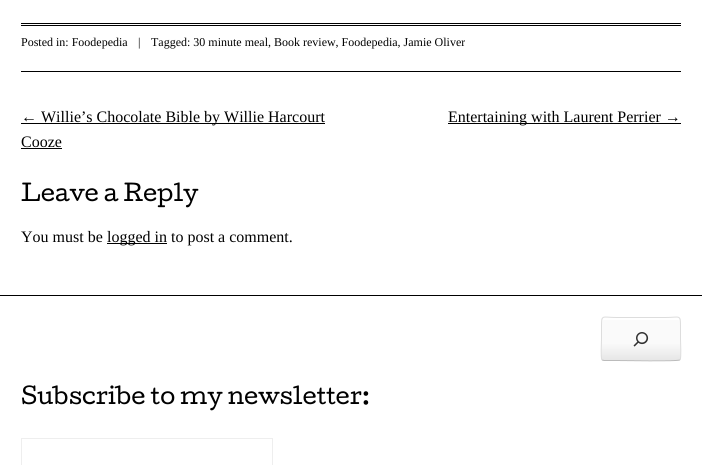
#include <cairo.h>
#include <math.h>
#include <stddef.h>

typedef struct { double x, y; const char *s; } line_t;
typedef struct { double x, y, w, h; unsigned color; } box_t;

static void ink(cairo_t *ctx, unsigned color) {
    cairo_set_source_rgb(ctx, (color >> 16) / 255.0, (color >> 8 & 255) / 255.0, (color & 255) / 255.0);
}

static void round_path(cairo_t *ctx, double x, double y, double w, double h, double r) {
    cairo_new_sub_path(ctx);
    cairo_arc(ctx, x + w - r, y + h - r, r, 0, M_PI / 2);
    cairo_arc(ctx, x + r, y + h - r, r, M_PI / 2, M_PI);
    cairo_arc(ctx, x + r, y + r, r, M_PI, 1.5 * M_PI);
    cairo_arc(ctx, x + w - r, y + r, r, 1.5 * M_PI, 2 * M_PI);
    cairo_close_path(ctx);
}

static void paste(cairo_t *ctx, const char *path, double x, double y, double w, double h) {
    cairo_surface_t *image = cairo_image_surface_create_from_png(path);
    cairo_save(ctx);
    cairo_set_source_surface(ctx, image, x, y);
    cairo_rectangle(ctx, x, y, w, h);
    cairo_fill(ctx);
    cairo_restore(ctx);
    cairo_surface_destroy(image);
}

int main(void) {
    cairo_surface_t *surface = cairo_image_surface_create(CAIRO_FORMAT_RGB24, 702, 465);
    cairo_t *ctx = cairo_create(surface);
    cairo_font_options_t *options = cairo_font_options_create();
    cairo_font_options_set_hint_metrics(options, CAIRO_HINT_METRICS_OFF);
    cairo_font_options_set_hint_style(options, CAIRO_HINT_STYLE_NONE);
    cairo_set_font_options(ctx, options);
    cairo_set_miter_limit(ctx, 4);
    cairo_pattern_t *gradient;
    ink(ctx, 0xFFFFFF);
    cairo_paint(ctx);
    {
        static const box_t items[] = {
            {21, 23, 660, 1, 0x000000},
            {21, 25, 660, 1, 0x000000},
            {21, 71, 660, 1, 0x000000},
        };
        for (size_t i = 0; i < sizeof items / sizeof *items; i++) {
            ink(ctx, items[i].color);
            cairo_rectangle(ctx, items[i].x, items[i].y, items[i].w, items[i].h);
            cairo_fill(ctx);
        }
    }
    cairo_select_font_face(ctx, "Liberation Serif", CAIRO_FONT_SLANT_NORMAL, CAIRO_FONT_WEIGHT_NORMAL);
    cairo_set_font_size(ctx, 12);
    {
        static const line_t items[] = {
            {21, 46, "Posted in: Foodepedia"},
            {138, 46, "|"},
            {151, 46, "Tagged: 30 minute meal, Book review, Foodepedia, Jamie Oliver"},
        };
        for (size_t i = 0; i < sizeof items / sizeof *items; i++) {
            cairo_move_to(ctx, items[i].x, items[i].y);
            cairo_show_text(ctx, items[i].s);
        }
    }
    cairo_rectangle(ctx, 21, 123, 304, 1);
    cairo_fill(ctx);
    cairo_set_font_size(ctx, 16);
    cairo_move_to(ctx, 21, 122);
    cairo_show_text(ctx, "← Willie’s Chocolate Bible by Willie Harcourt");
    cairo_move_to(ctx, 21, 147);
    cairo_show_text(ctx, "Cooze");
    cairo_rectangle(ctx, 21, 148, 41, 1);
    cairo_fill(ctx);
    cairo_rectangle(ctx, 448, 123, 233, 1);
    cairo_fill(ctx);
    cairo_move_to(ctx, 448, 122);
    cairo_show_text(ctx, "Entertaining with Laurent Perrier →");
    cairo_select_font_face(ctx, "Cutive", CAIRO_FONT_SLANT_NORMAL, CAIRO_FONT_WEIGHT_NORMAL);
    cairo_set_font_size(ctx, 22);
    cairo_move_to(ctx, 21, 201);
    cairo_show_text(ctx, "Leave a Reply");
    cairo_select_font_face(ctx, "Liberation Serif", CAIRO_FONT_SLANT_NORMAL, CAIRO_FONT_WEIGHT_NORMAL);
    cairo_set_font_size(ctx, 16);
    cairo_move_to(ctx, 21, 242);
    cairo_show_text(ctx, "You must be");
    cairo_rectangle(ctx, 107, 243, 60, 1);
    cairo_fill(ctx);
    cairo_move_to(ctx, 107, 242);
    cairo_show_text(ctx, "logged in to post a comment.");
    cairo_rectangle(ctx, 0, 295, 702, 1);
    cairo_fill(ctx);
    cairo_save(ctx);
    round_path(ctx, 601, 317, 80, 44, 3);
    cairo_clip(ctx);
    gradient = cairo_pattern_create_linear(641, 318, 641, 360);
    cairo_pattern_add_color_stop_rgba(gradient, 0.6, 0.98, 0.98, 0.98, 1);
    cairo_pattern_add_color_stop_rgba(gradient, 1, 0.902, 0.902, 0.902, 1);
    cairo_set_source(ctx, gradient);
    cairo_pattern_destroy(gradient);
    cairo_rectangle(ctx, 601, 318, 80, 42);
    cairo_fill(ctx);
    gradient = cairo_pattern_create_linear(641, 360, 641, 402);
    cairo_pattern_add_color_stop_rgba(gradient, 0.6, 0.98, 0.98, 0.98, 1);
    cairo_pattern_add_color_stop_rgba(gradient, 1, 0.902, 0.902, 0.902, 1);
    cairo_set_source(ctx, gradient);
    cairo_pattern_destroy(gradient);
    cairo_rectangle(ctx, 601, 360, 80, 1);
    cairo_fill(ctx);
    cairo_restore(ctx);
    ink(ctx, 0xFFFFFF);
    cairo_new_path(ctx);
    cairo_move_to(ctx, 604, 320);
    cairo_line_to(ctx, 678, 320);
    cairo_curve_to(ctx, 679, 320, 680, 321, 680, 322);
    cairo_curve_to(ctx, 680, 315, 674, 318, 666, 318);
    cairo_line_to(ctx, 616, 318);
    cairo_curve_to(ctx, 608, 318, 602, 315, 602, 322);
    cairo_curve_to(ctx, 602, 321, 603, 320, 604, 320);
    cairo_close_path(ctx);
    cairo_fill(ctx);
    cairo_new_path(ctx);
    cairo_move_to(ctx, 680, 360);
    cairo_line_to(ctx, 679.5, 360);
    cairo_curve_to(ctx, 677.5, 361.5, 623, 360.5, 616.5, 360.5);
    cairo_line_to(ctx, 604, 360.5);
    cairo_line_to(ctx, 602, 360);
    ink(ctx, 0xBBBBBB);
    cairo_set_line_width(ctx, 1);
    cairo_stroke(ctx);
    cairo_new_path(ctx);
    cairo_move_to(ctx, 602, 360);
    cairo_curve_to(ctx, 600.5, 358, 601.5, 342, 601.5, 339);
    cairo_line_to(ctx, 601.5, 326.5);
    cairo_curve_to(ctx, 601.5, 314, 602, 317.5, 616.5, 317.5);
    cairo_line_to(ctx, 665.5, 317.5);
    cairo_curve_to(ctx, 680, 317.5, 680.5, 314, 680.5, 326.5);
    cairo_line_to(ctx, 680.5, 339);
    cairo_curve_to(ctx, 680.5, 342, 681.5, 358, 680, 360);
    ink(ctx, 0xDDDDDD);
    cairo_stroke(ctx);
    paste(ctx, "media/1.png", 633, 332, 16, 15);
    cairo_select_font_face(ctx, "Cutive", CAIRO_FONT_SLANT_NORMAL, CAIRO_FONT_WEIGHT_NORMAL);
    cairo_set_font_size(ctx, 22);
    ink(ctx, 0x000000);
    cairo_move_to(ctx, 21, 404);
    cairo_show_text(ctx, "Subscribe to my newsletter:");
    cairo_rectangle(ctx, 21.5, 438.5, 251, 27);
    ink(ctx, 0xEEEEEE);
    cairo_stroke(ctx);
    cairo_surface_write_to_png(surface, "image.png");
    cairo_font_options_destroy(options);
    cairo_destroy(ctx);
    cairo_surface_destroy(surface);
    return 0;
}
